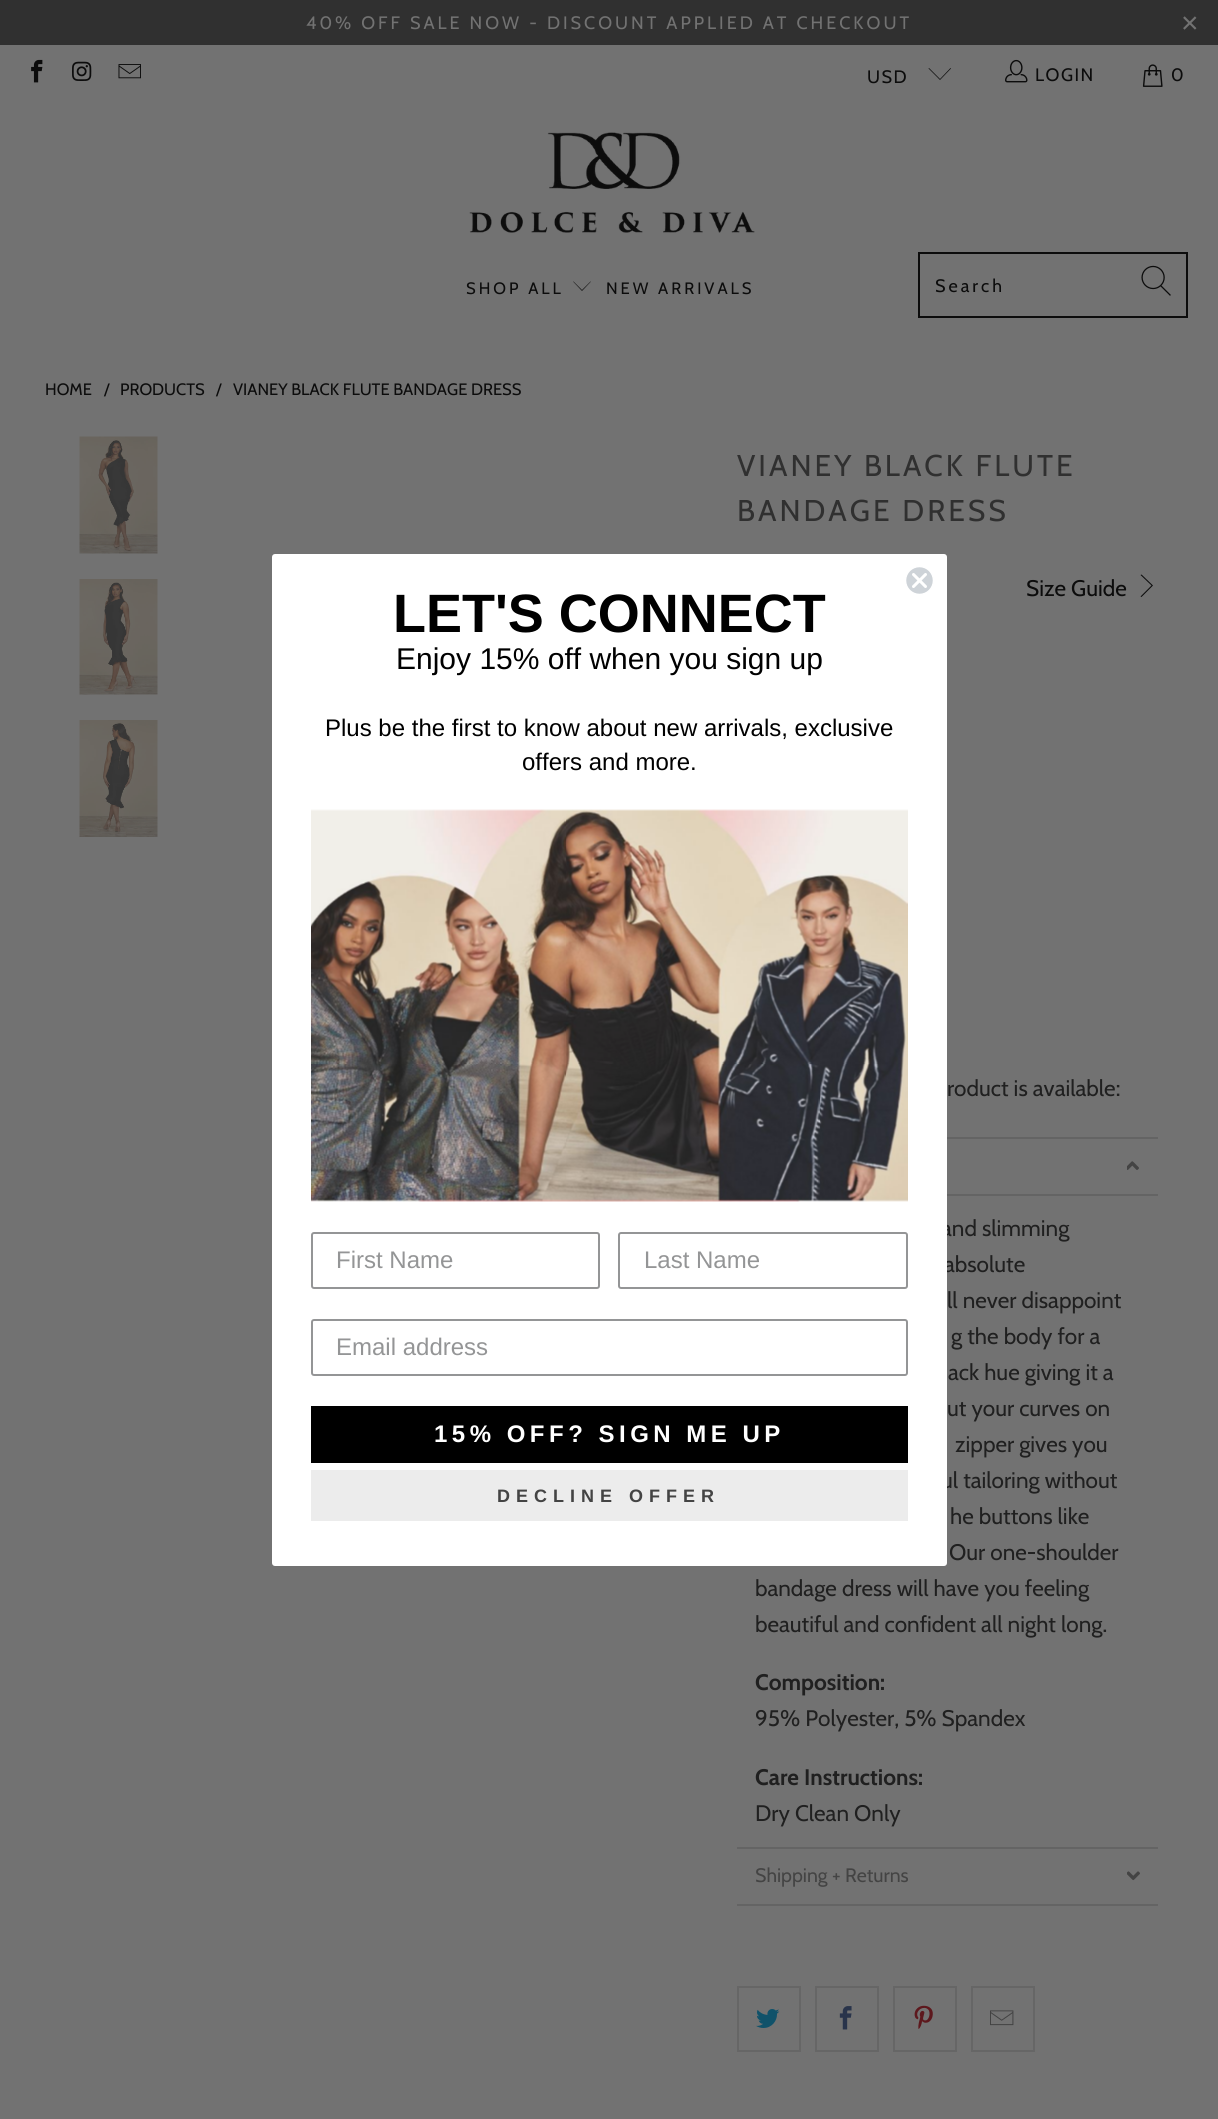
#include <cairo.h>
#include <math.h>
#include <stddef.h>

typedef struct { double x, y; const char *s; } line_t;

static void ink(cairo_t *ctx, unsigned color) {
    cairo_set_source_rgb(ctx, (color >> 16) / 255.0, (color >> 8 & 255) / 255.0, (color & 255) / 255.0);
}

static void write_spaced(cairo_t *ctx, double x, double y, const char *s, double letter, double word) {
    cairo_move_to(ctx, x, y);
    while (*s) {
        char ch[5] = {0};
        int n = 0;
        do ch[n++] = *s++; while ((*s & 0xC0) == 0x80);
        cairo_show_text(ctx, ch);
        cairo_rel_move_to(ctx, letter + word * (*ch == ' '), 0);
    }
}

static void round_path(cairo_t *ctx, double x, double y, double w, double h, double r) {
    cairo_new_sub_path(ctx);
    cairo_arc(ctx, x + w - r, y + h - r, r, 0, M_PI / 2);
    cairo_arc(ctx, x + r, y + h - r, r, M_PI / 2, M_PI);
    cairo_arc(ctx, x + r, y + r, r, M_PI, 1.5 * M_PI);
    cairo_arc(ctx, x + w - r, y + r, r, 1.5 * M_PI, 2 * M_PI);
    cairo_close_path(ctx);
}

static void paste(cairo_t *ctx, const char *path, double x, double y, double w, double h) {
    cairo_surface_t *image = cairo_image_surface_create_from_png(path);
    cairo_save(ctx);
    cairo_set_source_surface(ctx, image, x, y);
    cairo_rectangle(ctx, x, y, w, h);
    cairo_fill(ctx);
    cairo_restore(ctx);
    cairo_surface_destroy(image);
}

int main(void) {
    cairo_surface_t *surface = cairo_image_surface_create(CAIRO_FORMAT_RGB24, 1218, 2119);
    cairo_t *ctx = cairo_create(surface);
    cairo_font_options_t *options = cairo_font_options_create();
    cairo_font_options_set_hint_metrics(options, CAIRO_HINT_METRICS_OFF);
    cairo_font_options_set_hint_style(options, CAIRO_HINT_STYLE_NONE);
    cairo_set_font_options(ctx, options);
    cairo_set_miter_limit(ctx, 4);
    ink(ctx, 0x727272);
    cairo_paint(ctx);
    ink(ctx, 0x303030);
    cairo_rectangle(ctx, 0, 0, 1218, 45);
    cairo_fill(ctx);
    cairo_select_font_face(ctx, "Cabin", CAIRO_FONT_SLANT_NORMAL, CAIRO_FONT_WEIGHT_NORMAL);
    cairo_set_font_size(ctx, 18);
    ink(ctx, 0x727272);
    write_spaced(ctx, 306, 29, "40% OFF SALE NOW - DISCOUNT APPLIED AT CHECKOUT", 3, 0);
    cairo_select_font_face(ctx, "Liberation Sans", CAIRO_FONT_SLANT_NORMAL, CAIRO_FONT_WEIGHT_NORMAL);
    cairo_set_font_size(ctx, 30);
    write_spaced(ctx, 1181, 33, "×", 3, 0);
    paste(ctx, "media/1.png", 31, 59, 12, 24);
    paste(ctx, "media/2.png", 72, 61, 20, 20);
    paste(ctx, "media/3.png", 118, 64, 23, 15);
    cairo_select_font_face(ctx, "Cabin", CAIRO_FONT_SLANT_NORMAL, CAIRO_FONT_WEIGHT_NORMAL);
    cairo_set_font_size(ctx, 18);
    ink(ctx, 0x0C0C0C);
    write_spaced(ctx, 867, 83, "USD", 1.5, 0);
    cairo_new_path(ctx);
    cairo_move_to(ctx, 940, 80);
    cairo_line_to(ctx, 928.5, 68.5);
    cairo_line_to(ctx, 929, 68);
    cairo_line_to(ctx, 940, 79);
    cairo_line_to(ctx, 950.5, 68);
    cairo_line_to(ctx, 951, 68.5);
    cairo_close_path(ctx);
    cairo_fill(ctx);
    paste(ctx, "media/4.png", 1005, 59, 23, 24);
    write_spaced(ctx, 1035, 81, "LOGIN", 1.5, 0);
    paste(ctx, "media/5.png", 1142, 64, 21, 23);
    write_spaced(ctx, 1171, 81, "0", 1.5, 0);
    paste(ctx, "media/6.png", 469, 132, 286, 101);
    cairo_set_font_size(ctx, 16.5);
    write_spaced(ctx, 466, 294, "SHOP ALL", 3, 0);
    cairo_new_path(ctx);
    cairo_move_to(ctx, 582, 291);
    cairo_line_to(ctx, 573, 281.5);
    cairo_line_to(ctx, 573.5, 281.5);
    cairo_line_to(ctx, 582, 290);
    cairo_line_to(ctx, 590.5, 281.5);
    cairo_line_to(ctx, 591, 281.5);
    cairo_close_path(ctx);
    cairo_fill(ctx);
    write_spaced(ctx, 606, 294, "NEW ARRIVALS", 3, 0);
    cairo_rectangle(ctx, 919, 253, 268, 64);
    cairo_stroke(ctx);
    cairo_set_font_size(ctx, 18);
    write_spaced(ctx, 935, 292, "Search", 3, 0);
    paste(ctx, "media/7.png", 1141, 265, 30, 31);
    cairo_set_font_size(ctx, 16.5);
    {
        static const line_t items[] = {
            {45, 395, "HOME"},
            {104, 395, "/"},
            {120, 395, "PRODUCTS"},
            {216, 395, "/"},
            {233, 395, "VIANEY BLACK FLUTE BANDAGE DRESS"},
        };
        for (size_t i = 0; i < sizeof items / sizeof *items; i++) {
            cairo_move_to(ctx, items[i].x, items[i].y);
            cairo_show_text(ctx, items[i].s);
        }
    }
    paste(ctx, "media/8.png", 79, 436, 79, 118);
    paste(ctx, "media/9.png", 79, 579, 79, 116);
    paste(ctx, "media/10.png", 79, 720, 79, 117);
    cairo_set_font_size(ctx, 30);
    ink(ctx, 0x303030);
    write_spaced(ctx, 737, 476, "VIANEY BLACK FLUTE", 3, 0);
    write_spaced(ctx, 737, 521, "BANDAGE DRESS", 3, 0);
    cairo_set_font_size(ctx, 22.5);
    ink(ctx, 0x0C0C0C);
    cairo_move_to(ctx, 1026, 596);
    cairo_show_text(ctx, "Size Guide");
    cairo_new_path(ctx);
    cairo_move_to(ctx, 1141.5, 597);
    cairo_line_to(ctx, 1140.5, 596.5);
    cairo_line_to(ctx, 1151.5, 585.5);
    cairo_line_to(ctx, 1140.5, 575);
    cairo_line_to(ctx, 1141.5, 574.5);
    cairo_line_to(ctx, 1153, 585.5);
    cairo_close_path(ctx);
    cairo_fill(ctx);
    ink(ctx, 0x202020);
    cairo_move_to(ctx, 947, 1096);
    cairo_show_text(ctx, "roduct is available:");
    ink(ctx, 0x646464);
    cairo_rectangle(ctx, 947, 1137, 211, 2);
    cairo_fill(ctx);
    cairo_rectangle(ctx, 947, 1194, 211, 2);
    cairo_fill(ctx);
    paste(ctx, "media/11.png", 1127, 1161, 12, 9);
    ink(ctx, 0x202020);
    {
        static const line_t items[] = {
            {941, 1236, "and slimming"},
            {944, 1272, "absolute"},
            {947, 1308, "ll never disappoint"},
            {951, 1344, "g the body for a"},
            {948, 1380, "ack hue giving it a"},
            {947, 1416, "ut your curves on"},
            {955, 1452, "zipper gives you"},
            {941, 1488, "ul tailoring without"},
            {950, 1524, "he buttons like"},
            {949, 1560, "Our one-shoulder"},
            {755, 1596, "bandage dress will have you feeling"},
            {755, 1632, "beautiful and confident all night long."},
        };
        for (size_t i = 0; i < sizeof items / sizeof *items; i++) {
            cairo_move_to(ctx, items[i].x, items[i].y);
            cairo_show_text(ctx, items[i].s);
        }
    }
    cairo_select_font_face(ctx, "Cabin", CAIRO_FONT_SLANT_NORMAL, CAIRO_FONT_WEIGHT_BOLD);
    cairo_move_to(ctx, 755, 1690);
    cairo_show_text(ctx, "Composition:");
    cairo_select_font_face(ctx, "Cabin", CAIRO_FONT_SLANT_NORMAL, CAIRO_FONT_WEIGHT_NORMAL);
    cairo_move_to(ctx, 755, 1726);
    cairo_show_text(ctx, "95% Polyester, 5% Spandex");
    cairo_select_font_face(ctx, "Cabin", CAIRO_FONT_SLANT_NORMAL, CAIRO_FONT_WEIGHT_BOLD);
    cairo_move_to(ctx, 755, 1785);
    cairo_show_text(ctx, "Care Instructions:");
    cairo_select_font_face(ctx, "Cabin", CAIRO_FONT_SLANT_NORMAL, CAIRO_FONT_WEIGHT_NORMAL);
    cairo_move_to(ctx, 755, 1821);
    cairo_show_text(ctx, "Dry Clean Only");
    ink(ctx, 0x646464);
    cairo_rectangle(ctx, 737, 1847, 421, 2);
    cairo_fill(ctx);
    cairo_rectangle(ctx, 737, 1904, 421, 2);
    cairo_fill(ctx);
    cairo_set_font_size(ctx, 19.5);
    ink(ctx, 0x444444);
    cairo_move_to(ctx, 755, 1882);
    cairo_show_text(ctx, "Shipping + Returns");
    paste(ctx, "media/12.png", 1127, 1871, 13, 10);
    cairo_rectangle(ctx, 738, 1987, 62, 64);
    ink(ctx, 0x666666);
    cairo_stroke(ctx);
    paste(ctx, "media/13.png", 756, 2009, 24, 19);
    cairo_rectangle(ctx, 816, 1987, 62, 64);
    cairo_stroke(ctx);
    paste(ctx, "media/14.png", 839, 2006, 13, 24);
    cairo_rectangle(ctx, 894, 1987, 62, 64);
    cairo_stroke(ctx);
    paste(ctx, "media/15.png", 914, 2005, 19, 24);
    cairo_rectangle(ctx, 972, 1987, 62, 64);
    cairo_stroke(ctx);
    paste(ctx, "media/16.png", 990, 2010, 24, 16);
    ink(ctx, 0xFFFFFF);
    round_path(ctx, 272, 554, 675, 1012, 3);
    cairo_fill(ctx);
    ink(ctx, 0xCED3D8);
    cairo_arc(ctx, 919.5, 580.5, 14, 0, 2 * M_PI);
    cairo_fill(ctx);
    cairo_save(ctx);
    cairo_rectangle(ctx, 905, 566, 30, 30);
    cairo_clip(ctx);
    cairo_arc(ctx, 919.5, 580.5, 14, 0, 2 * M_PI);
    ink(ctx, 0xFFFFFF);
    cairo_set_line_width(ctx, 1.5);
    cairo_stroke(ctx);
    cairo_restore(ctx);
    cairo_new_path(ctx);
    cairo_move_to(ctx, 913.5, 574.5);
    cairo_line_to(ctx, 925.5, 586.5);
    cairo_move_to(ctx, 913.5, 586.5);
    cairo_line_to(ctx, 925.5, 574.5);
    cairo_close_path(ctx);
    ink(ctx, 0xFFFFFF);
    cairo_set_line_width(ctx, 3);
    cairo_set_line_cap(ctx, CAIRO_LINE_CAP_ROUND);
    cairo_set_line_join(ctx, CAIRO_LINE_JOIN_ROUND);
    cairo_stroke(ctx);
    cairo_select_font_face(ctx, "Liberation Sans", CAIRO_FONT_SLANT_NORMAL, CAIRO_FONT_WEIGHT_BOLD);
    cairo_set_font_size(ctx, 54);
    ink(ctx, 0x000000);
    cairo_move_to(ctx, 393, 632);
    cairo_show_text(ctx, "LET'S CONNECT");
    cairo_select_font_face(ctx, "Liberation Sans", CAIRO_FONT_SLANT_NORMAL, CAIRO_FONT_WEIGHT_NORMAL);
    cairo_set_font_size(ctx, 30);
    cairo_move_to(ctx, 396, 669);
    cairo_show_text(ctx, "Enjoy 15% off when you sign up");
    cairo_set_font_size(ctx, 24);
    cairo_move_to(ctx, 325, 736);
    cairo_show_text(ctx, "Plus be the first to know about new arrivals, exclusive");
    cairo_move_to(ctx, 522, 770);
    cairo_show_text(ctx, "offers and more.");
    paste(ctx, "media/17.png", 311, 809, 597, 393);
    round_path(ctx, 312, 1233, 287, 55, 2);
    ink(ctx, 0x949596);
    cairo_set_line_width(ctx, 2);
    cairo_set_line_cap(ctx, CAIRO_LINE_CAP_BUTT);
    cairo_set_line_join(ctx, CAIRO_LINE_JOIN_MITER);
    cairo_stroke(ctx);
    cairo_move_to(ctx, 336, 1268);
    cairo_show_text(ctx, "First Name");
    round_path(ctx, 619, 1233, 288, 55, 2);
    cairo_stroke(ctx);
    cairo_move_to(ctx, 644, 1268);
    cairo_show_text(ctx, "Last Name");
    round_path(ctx, 312, 1320, 595, 55, 2);
    cairo_stroke(ctx);
    cairo_move_to(ctx, 336, 1355);
    cairo_show_text(ctx, "Email address");
    ink(ctx, 0x000000);
    cairo_rectangle(ctx, 311, 1406, 597, 57);
    cairo_fill(ctx);
    cairo_select_font_face(ctx, "Liberation Sans", CAIRO_FONT_SLANT_NORMAL, CAIRO_FONT_WEIGHT_BOLD);
    ink(ctx, 0xFFFFFF);
    write_spaced(ctx, 434, 1442, "15% OFF? SIGN ME UP", 4.5, 0);
    ink(ctx, 0xECECEC);
    cairo_rectangle(ctx, 311, 1470, 597, 51);
    cairo_fill(ctx);
    cairo_set_font_size(ctx, 18);
    ink(ctx, 0x444444);
    write_spaced(ctx, 497, 1502, "DECLINE OFFER", 6, 0);
    cairo_surface_write_to_png(surface, "image.png");
    cairo_font_options_destroy(options);
    cairo_destroy(ctx);
    cairo_surface_destroy(surface);
    return 0;
}
